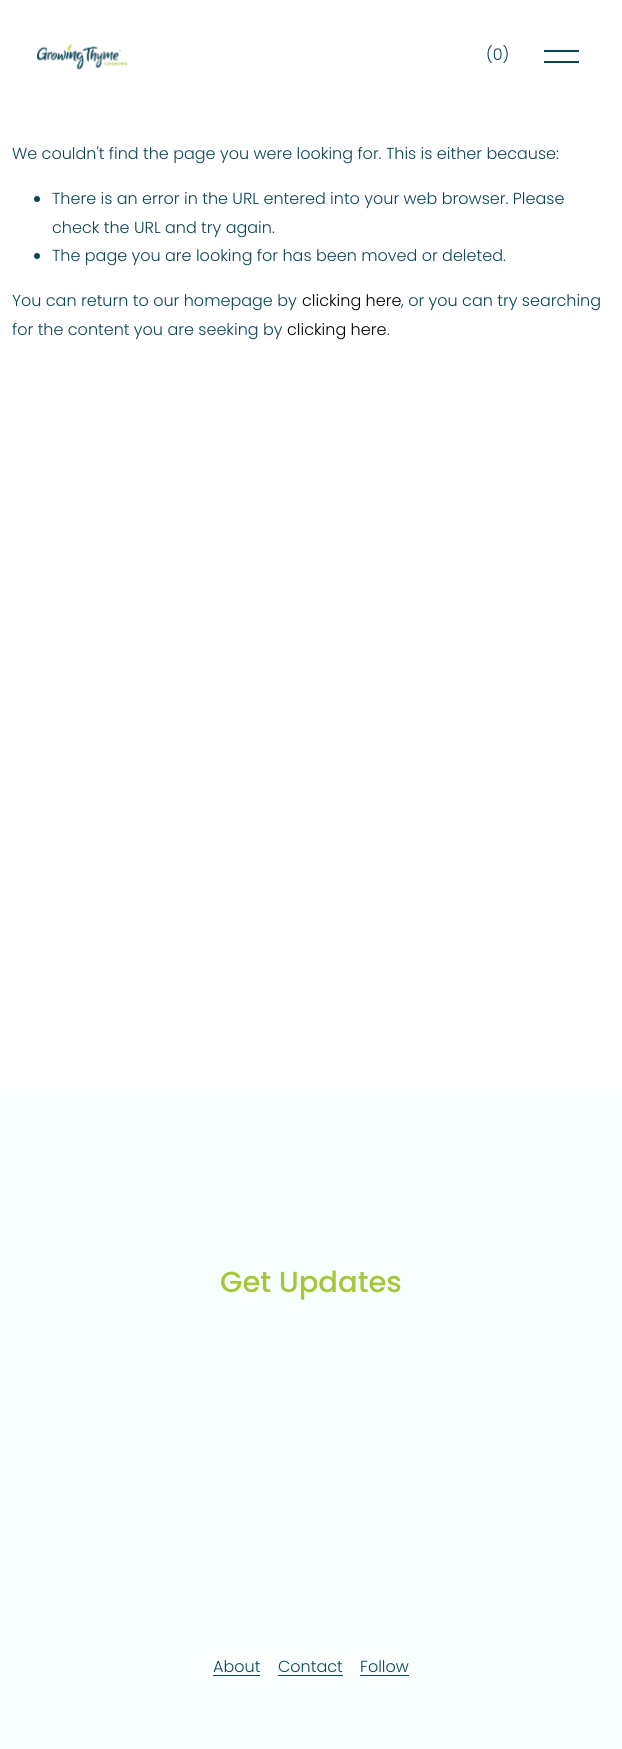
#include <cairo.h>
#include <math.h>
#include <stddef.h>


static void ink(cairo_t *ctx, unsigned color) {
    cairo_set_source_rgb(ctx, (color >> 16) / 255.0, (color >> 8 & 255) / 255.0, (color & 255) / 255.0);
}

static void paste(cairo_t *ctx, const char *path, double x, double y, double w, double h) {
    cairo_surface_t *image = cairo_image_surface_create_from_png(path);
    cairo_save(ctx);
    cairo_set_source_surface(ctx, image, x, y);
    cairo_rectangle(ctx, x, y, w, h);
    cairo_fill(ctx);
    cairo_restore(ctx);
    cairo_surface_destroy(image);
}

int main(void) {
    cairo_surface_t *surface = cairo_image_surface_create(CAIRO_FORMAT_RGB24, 622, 1749);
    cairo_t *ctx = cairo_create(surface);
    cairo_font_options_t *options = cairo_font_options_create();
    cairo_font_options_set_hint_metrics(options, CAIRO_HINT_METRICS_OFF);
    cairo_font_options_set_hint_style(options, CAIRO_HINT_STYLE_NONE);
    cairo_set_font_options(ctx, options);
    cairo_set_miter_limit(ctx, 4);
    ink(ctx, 0xFFFFFF);
    cairo_paint(ctx);
    paste(ctx, "media/1.png", 37, 43, 91, 27);
    cairo_select_font_face(ctx, "Poppins Light", CAIRO_FONT_SLANT_NORMAL, CAIRO_FONT_WEIGHT_NORMAL);
    cairo_set_font_size(ctx, 16);
    ink(ctx, 0x0B4457);
    cairo_move_to(ctx, 486, 60);
    cairo_show_text(ctx, "(0)");
    cairo_rectangle(ctx, 544, 50, 35, 2);
    cairo_fill(ctx);
    cairo_rectangle(ctx, 544, 61, 35, 2);
    cairo_fill(ctx);
    cairo_move_to(ctx, 12, 159);
    cairo_show_text(ctx, "We couldn't find the page you were looking for. This is either because:");
    cairo_new_path(ctx);
    cairo_arc(ctx, 37, 199, 3, 0, 2 * M_PI);
    cairo_fill(ctx);
    cairo_move_to(ctx, 52, 204);
    cairo_show_text(ctx, "There is an error in the URL entered into your web browser. Please");
    cairo_move_to(ctx, 52, 233);
    cairo_show_text(ctx, "check the URL and try again.");
    cairo_new_path(ctx);
    cairo_arc(ctx, 37, 256, 3, 0, 2 * M_PI);
    cairo_fill(ctx);
    cairo_move_to(ctx, 52, 261);
    cairo_show_text(ctx, "The page you are looking for has been moved or deleted.");
    cairo_move_to(ctx, 12, 306);
    cairo_show_text(ctx, "You can return to our homepage by");
    ink(ctx, 0x000000);
    cairo_move_to(ctx, 302, 306);
    cairo_show_text(ctx, "clicking here");
    ink(ctx, 0x0B4457);
    cairo_move_to(ctx, 401, 306);
    cairo_show_text(ctx, ", or you can try searching");
    cairo_move_to(ctx, 12, 335);
    cairo_show_text(ctx, "for the content you are seeking by");
    ink(ctx, 0x000000);
    cairo_move_to(ctx, 287, 335);
    cairo_show_text(ctx, "clicking here");
    ink(ctx, 0x0B4457);
    cairo_move_to(ctx, 387, 335);
    cairo_show_text(ctx, ".");
    ink(ctx, 0xF9FFFD);
    cairo_rectangle(ctx, 0, 1088, 622, 661);
    cairo_fill(ctx);
    cairo_select_font_face(ctx, "Poppins Medium", CAIRO_FONT_SLANT_NORMAL, CAIRO_FONT_WEIGHT_NORMAL);
    cairo_set_font_size(ctx, 29);
    ink(ctx, 0xA6C539);
    cairo_move_to(ctx, 220, 1292);
    cairo_show_text(ctx, "Get Updates");
    cairo_select_font_face(ctx, "Poppins Light", CAIRO_FONT_SLANT_NORMAL, CAIRO_FONT_WEIGHT_NORMAL);
    cairo_set_font_size(ctx, 16);
    ink(ctx, 0x0B4457);
    cairo_move_to(ctx, 213, 1672);
    cairo_show_text(ctx, "About");
    cairo_rectangle(ctx, 213, 1675, 47, 1);
    cairo_fill(ctx);
    cairo_move_to(ctx, 278, 1672);
    cairo_show_text(ctx, "Contact");
    cairo_rectangle(ctx, 278, 1675, 65, 1);
    cairo_fill(ctx);
    cairo_move_to(ctx, 360, 1672);
    cairo_show_text(ctx, "Follow");
    cairo_rectangle(ctx, 360, 1675, 49, 1);
    cairo_fill(ctx);
    cairo_surface_write_to_png(surface, "image.png");
    cairo_font_options_destroy(options);
    cairo_destroy(ctx);
    cairo_surface_destroy(surface);
    return 0;
}
